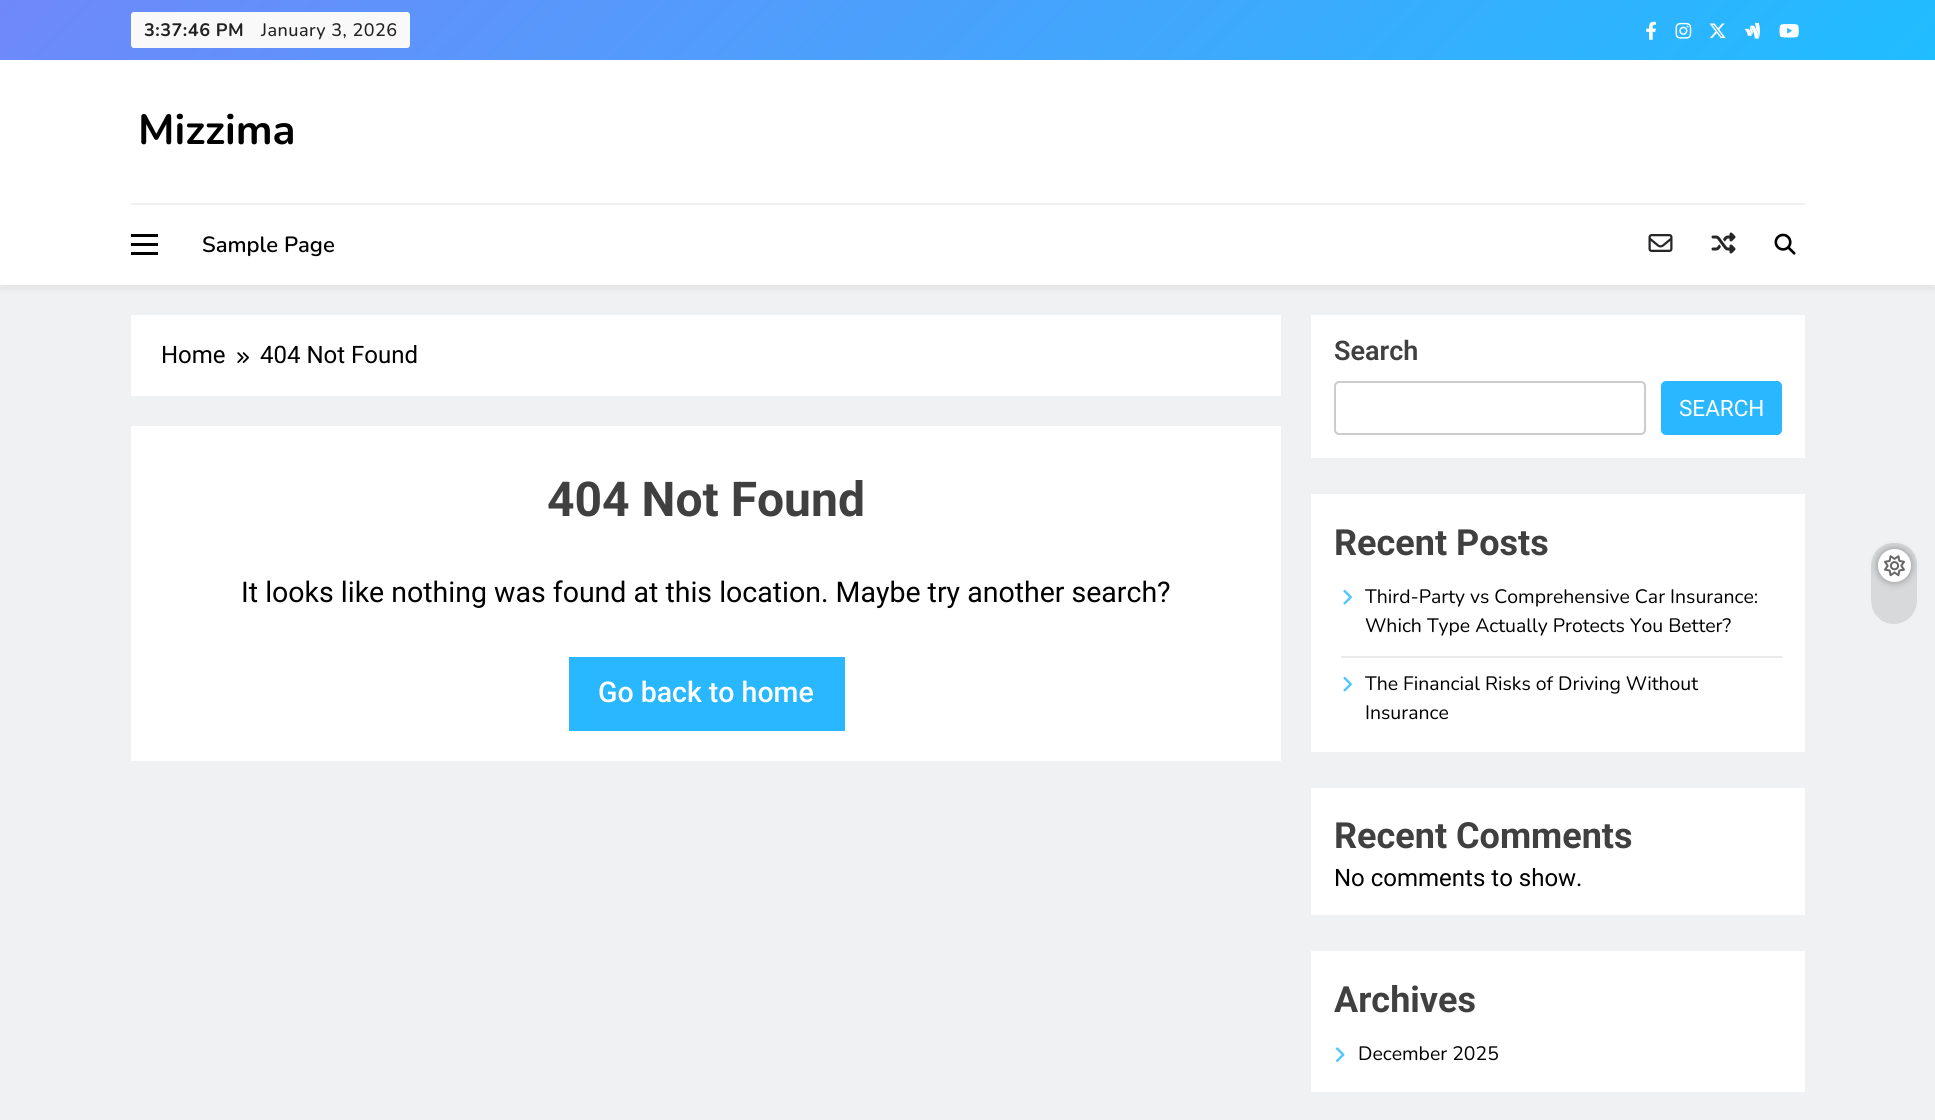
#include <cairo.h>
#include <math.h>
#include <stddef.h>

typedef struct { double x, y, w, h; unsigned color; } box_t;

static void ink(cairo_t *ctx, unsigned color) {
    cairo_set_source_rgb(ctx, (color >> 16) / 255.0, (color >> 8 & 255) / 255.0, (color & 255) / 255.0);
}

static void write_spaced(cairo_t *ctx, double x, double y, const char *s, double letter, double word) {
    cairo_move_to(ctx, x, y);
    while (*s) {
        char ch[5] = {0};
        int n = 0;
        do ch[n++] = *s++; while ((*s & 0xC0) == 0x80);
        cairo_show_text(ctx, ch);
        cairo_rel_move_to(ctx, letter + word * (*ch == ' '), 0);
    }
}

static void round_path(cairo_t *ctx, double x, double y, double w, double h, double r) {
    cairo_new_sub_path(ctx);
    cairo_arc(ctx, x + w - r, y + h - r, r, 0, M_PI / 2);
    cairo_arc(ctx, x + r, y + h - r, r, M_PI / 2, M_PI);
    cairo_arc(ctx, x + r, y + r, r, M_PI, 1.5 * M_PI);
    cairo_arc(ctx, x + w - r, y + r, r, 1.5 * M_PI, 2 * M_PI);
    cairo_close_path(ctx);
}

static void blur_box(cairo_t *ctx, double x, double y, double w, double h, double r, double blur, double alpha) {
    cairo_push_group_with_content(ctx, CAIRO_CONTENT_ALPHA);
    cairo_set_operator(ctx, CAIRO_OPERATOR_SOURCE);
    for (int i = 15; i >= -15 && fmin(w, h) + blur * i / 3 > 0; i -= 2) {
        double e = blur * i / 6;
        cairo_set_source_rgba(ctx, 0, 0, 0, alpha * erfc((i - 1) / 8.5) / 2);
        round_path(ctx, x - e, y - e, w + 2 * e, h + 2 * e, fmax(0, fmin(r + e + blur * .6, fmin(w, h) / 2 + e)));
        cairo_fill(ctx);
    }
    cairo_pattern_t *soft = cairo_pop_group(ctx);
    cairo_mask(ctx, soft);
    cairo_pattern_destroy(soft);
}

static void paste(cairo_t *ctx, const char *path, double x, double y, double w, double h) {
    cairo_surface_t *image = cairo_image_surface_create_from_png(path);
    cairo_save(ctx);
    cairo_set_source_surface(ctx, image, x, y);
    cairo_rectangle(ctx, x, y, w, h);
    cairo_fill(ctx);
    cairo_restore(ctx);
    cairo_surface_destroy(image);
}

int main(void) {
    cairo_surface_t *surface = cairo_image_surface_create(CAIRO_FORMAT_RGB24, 1935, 1120);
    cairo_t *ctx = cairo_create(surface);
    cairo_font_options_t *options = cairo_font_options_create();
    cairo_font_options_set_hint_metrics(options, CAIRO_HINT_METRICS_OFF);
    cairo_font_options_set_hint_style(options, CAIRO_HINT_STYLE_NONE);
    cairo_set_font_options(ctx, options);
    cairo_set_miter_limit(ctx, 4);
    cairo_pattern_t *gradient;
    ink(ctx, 0xF0F1F2);
    cairo_paint(ctx);
    gradient = cairo_pattern_create_linear(469, -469, 1466, 529);
    cairo_pattern_add_color_stop_rgba(gradient, 0, 0.435, 0.533, 0.98, 1);
    cairo_pattern_add_color_stop_rgba(gradient, 1, 0.125, 0.741, 1, 1);
    cairo_set_source(ctx, gradient);
    cairo_pattern_destroy(gradient);
    cairo_rectangle(ctx, 0, 0, 1935, 60);
    cairo_fill(ctx);
    ink(ctx, 0xF9F9F9);
    round_path(ctx, 131, 12, 279, 36, 3);
    cairo_fill(ctx);
    cairo_select_font_face(ctx, "Nunito", CAIRO_FONT_SLANT_NORMAL, CAIRO_FONT_WEIGHT_BOLD);
    cairo_set_font_size(ctx, 18);
    ink(ctx, 0x222222);
    write_spaced(ctx, 144, 36, "3:37:46 PM", 0.5, 0);
    cairo_select_font_face(ctx, "Nunito Medium", CAIRO_FONT_SLANT_NORMAL, CAIRO_FONT_WEIGHT_NORMAL);
    write_spaced(ctx, 261, 36, "January 3, 2026", 0.5, 0);
    paste(ctx, "media/1.png", 1646, 21, 10, 19);
    paste(ctx, "media/2.png", 1675, 22, 17, 17);
    paste(ctx, "media/3.png", 1709, 23, 17, 16);
    paste(ctx, "media/4.png", 1744, 22, 16, 17);
    paste(ctx, "media/5.png", 1779, 24, 20, 14);
    ink(ctx, 0x000000);
    blur_box(ctx, 0, 65, 1935, 225, 0, 3, 0.05);
    ink(ctx, 0xFFFFFF);
    cairo_rectangle(ctx, 0, 60, 1935, 225);
    cairo_fill(ctx);
    cairo_select_font_face(ctx, "Nunito", CAIRO_FONT_SLANT_NORMAL, CAIRO_FONT_WEIGHT_BOLD);
    cairo_set_font_size(ctx, 42);
    ink(ctx, 0x000000);
    cairo_move_to(ctx, 138, 144);
    cairo_show_text(ctx, "Mizzima");
    {
        static const box_t items[] = {
            {131, 203, 1674, 2, 0xF0F0F0},
            {131, 234, 27, 3, 0x000000},
            {131, 243, 27, 3, 0x000000},
            {131, 252, 27, 3, 0x000000},
        };
        for (size_t i = 0; i < sizeof items / sizeof *items; i++) {
            ink(ctx, items[i].color);
            cairo_rectangle(ctx, items[i].x, items[i].y, items[i].w, items[i].h);
            cairo_fill(ctx);
        }
    }
    cairo_select_font_face(ctx, "Nunito SemiBold", CAIRO_FONT_SLANT_NORMAL, CAIRO_FONT_WEIGHT_NORMAL);
    cairo_set_font_size(ctx, 22);
    cairo_move_to(ctx, 202, 252);
    cairo_show_text(ctx, "Sample Page");
    paste(ctx, "media/6.png", 1648, 234, 25, 18);
    paste(ctx, "media/7.png", 1711, 232, 25, 22);
    paste(ctx, "media/8.png", 1774, 233, 22, 22);
    ink(ctx, 0xD8D9DA);
    cairo_new_path(ctx);
    cairo_move_to(ctx, 1917, 565);
    cairo_line_to(ctx, 1917, 601);
    cairo_curve_to(ctx, 1916, 626, 1883, 633, 1873, 610);
    cairo_curve_to(ctx, 1870, 602, 1871, 591, 1871, 583);
    cairo_line_to(ctx, 1871, 565);
    cairo_curve_to(ctx, 1873, 535, 1917, 536, 1917, 565);
    cairo_close_path(ctx);
    cairo_fill(ctx);
    ink(ctx, 0x000000);
    blur_box(ctx, 1878, 549, 33, 33, 16.5, 4, 0.35);
    ink(ctx, 0xFFFFFF);
    cairo_arc(ctx, 1894.5, 565.5, 16.5, 0, 2 * M_PI);
    cairo_fill(ctx);
    paste(ctx, "media/9.png", 1884, 555, 21, 22);
    cairo_rectangle(ctx, 131, 315, 1150, 81);
    cairo_fill(ctx);
    cairo_select_font_face(ctx, "Roboto", CAIRO_FONT_SLANT_NORMAL, CAIRO_FONT_WEIGHT_NORMAL);
    cairo_set_font_size(ctx, 24);
    ink(ctx, 0x000000);
    cairo_move_to(ctx, 161, 363);
    cairo_show_text(ctx, "Home");
    paste(ctx, "media/10.png", 237, 352, 12, 11);
    cairo_move_to(ctx, 260, 363);
    cairo_show_text(ctx, "404 Not Found");
    ink(ctx, 0xFFFFFF);
    cairo_rectangle(ctx, 131, 426, 1150, 335);
    cairo_fill(ctx);
    cairo_select_font_face(ctx, "Roboto", CAIRO_FONT_SLANT_NORMAL, CAIRO_FONT_WEIGHT_BOLD);
    cairo_set_font_size(ctx, 48);
    ink(ctx, 0x404040);
    cairo_move_to(ctx, 547, 516);
    cairo_show_text(ctx, "404 Not Found");
    cairo_select_font_face(ctx, "Roboto", CAIRO_FONT_SLANT_NORMAL, CAIRO_FONT_WEIGHT_NORMAL);
    cairo_set_font_size(ctx, 28.5);
    ink(ctx, 0x000000);
    cairo_move_to(ctx, 241, 602);
    cairo_show_text(ctx, "It looks like nothing was found at this location. Maybe try another search?");
    ink(ctx, 0x29B8FF);
    cairo_rectangle(ctx, 569, 657, 276, 74);
    cairo_fill(ctx);
    cairo_select_font_face(ctx, "Roboto Medium", CAIRO_FONT_SLANT_NORMAL, CAIRO_FONT_WEIGHT_NORMAL);
    ink(ctx, 0xFFFFFF);
    cairo_move_to(ctx, 598, 702);
    cairo_show_text(ctx, "Go back to home");
    cairo_rectangle(ctx, 1311, 315, 494, 143);
    cairo_fill(ctx);
    cairo_select_font_face(ctx, "Roboto SemiBold", CAIRO_FONT_SLANT_NORMAL, CAIRO_FONT_WEIGHT_NORMAL);
    cairo_set_font_size(ctx, 27);
    ink(ctx, 0x404040);
    cairo_move_to(ctx, 1334, 360);
    cairo_show_text(ctx, "Search");
    round_path(ctx, 1335, 382, 310, 52, 4);
    ink(ctx, 0xCCCCCC);
    cairo_stroke(ctx);
    ink(ctx, 0x29B8FF);
    round_path(ctx, 1661, 381, 121, 54, 5);
    cairo_fill(ctx);
    cairo_select_font_face(ctx, "Roboto", CAIRO_FONT_SLANT_NORMAL, CAIRO_FONT_WEIGHT_NORMAL);
    cairo_set_font_size(ctx, 22.5);
    ink(ctx, 0xFFFFFF);
    cairo_move_to(ctx, 1679, 416);
    cairo_show_text(ctx, "SEARCH");
    cairo_rectangle(ctx, 1311, 494, 494, 258);
    cairo_fill(ctx);
    cairo_select_font_face(ctx, "Roboto", CAIRO_FONT_SLANT_NORMAL, CAIRO_FONT_WEIGHT_BOLD);
    cairo_set_font_size(ctx, 36);
    ink(ctx, 0x404040);
    cairo_move_to(ctx, 1334, 555);
    cairo_show_text(ctx, "Recent Posts");
    ink(ctx, 0xEAEAEA);
    cairo_rectangle(ctx, 1341, 656, 441, 2);
    cairo_fill(ctx);
    paste(ctx, "media/11.png", 1343, 589, 9, 16);
    cairo_select_font_face(ctx, "Nunito", CAIRO_FONT_SLANT_NORMAL, CAIRO_FONT_WEIGHT_NORMAL);
    cairo_set_font_size(ctx, 19.4);
    ink(ctx, 0x000000);
    cairo_move_to(ctx, 1365, 603);
    cairo_show_text(ctx, "Third-Party vs Comprehensive Car Insurance:");
    cairo_move_to(ctx, 1365, 632);
    cairo_show_text(ctx, "Which Type Actually Protects You Better?");
    paste(ctx, "media/11.png", 1343, 676, 9, 16);
    cairo_move_to(ctx, 1365, 690);
    cairo_show_text(ctx, "The Financial Risks of Driving Without");
    cairo_move_to(ctx, 1365, 719);
    cairo_show_text(ctx, "Insurance");
    ink(ctx, 0xFFFFFF);
    cairo_rectangle(ctx, 1311, 788, 494, 127);
    cairo_fill(ctx);
    cairo_select_font_face(ctx, "Roboto", CAIRO_FONT_SLANT_NORMAL, CAIRO_FONT_WEIGHT_BOLD);
    cairo_set_font_size(ctx, 36);
    ink(ctx, 0x404040);
    cairo_move_to(ctx, 1334, 848);
    cairo_show_text(ctx, "Recent Comments");
    cairo_select_font_face(ctx, "Roboto", CAIRO_FONT_SLANT_NORMAL, CAIRO_FONT_WEIGHT_NORMAL);
    cairo_set_font_size(ctx, 24);
    ink(ctx, 0x000000);
    cairo_move_to(ctx, 1334, 886);
    cairo_show_text(ctx, "No comments to show.");
    ink(ctx, 0xFFFFFF);
    cairo_rectangle(ctx, 1311, 951, 494, 141);
    cairo_fill(ctx);
    cairo_select_font_face(ctx, "Roboto", CAIRO_FONT_SLANT_NORMAL, CAIRO_FONT_WEIGHT_BOLD);
    cairo_set_font_size(ctx, 36);
    ink(ctx, 0x404040);
    cairo_move_to(ctx, 1334, 1012);
    cairo_show_text(ctx, "Archives");
    paste(ctx, "media/12.png", 1336, 1047, 9, 15);
    cairo_select_font_face(ctx, "Nunito", CAIRO_FONT_SLANT_NORMAL, CAIRO_FONT_WEIGHT_NORMAL);
    cairo_set_font_size(ctx, 19.4);
    ink(ctx, 0x000000);
    cairo_move_to(ctx, 1358, 1060);
    cairo_show_text(ctx, "December 2025");
    cairo_surface_write_to_png(surface, "image.png");
    cairo_font_options_destroy(options);
    cairo_destroy(ctx);
    cairo_surface_destroy(surface);
    return 0;
}
